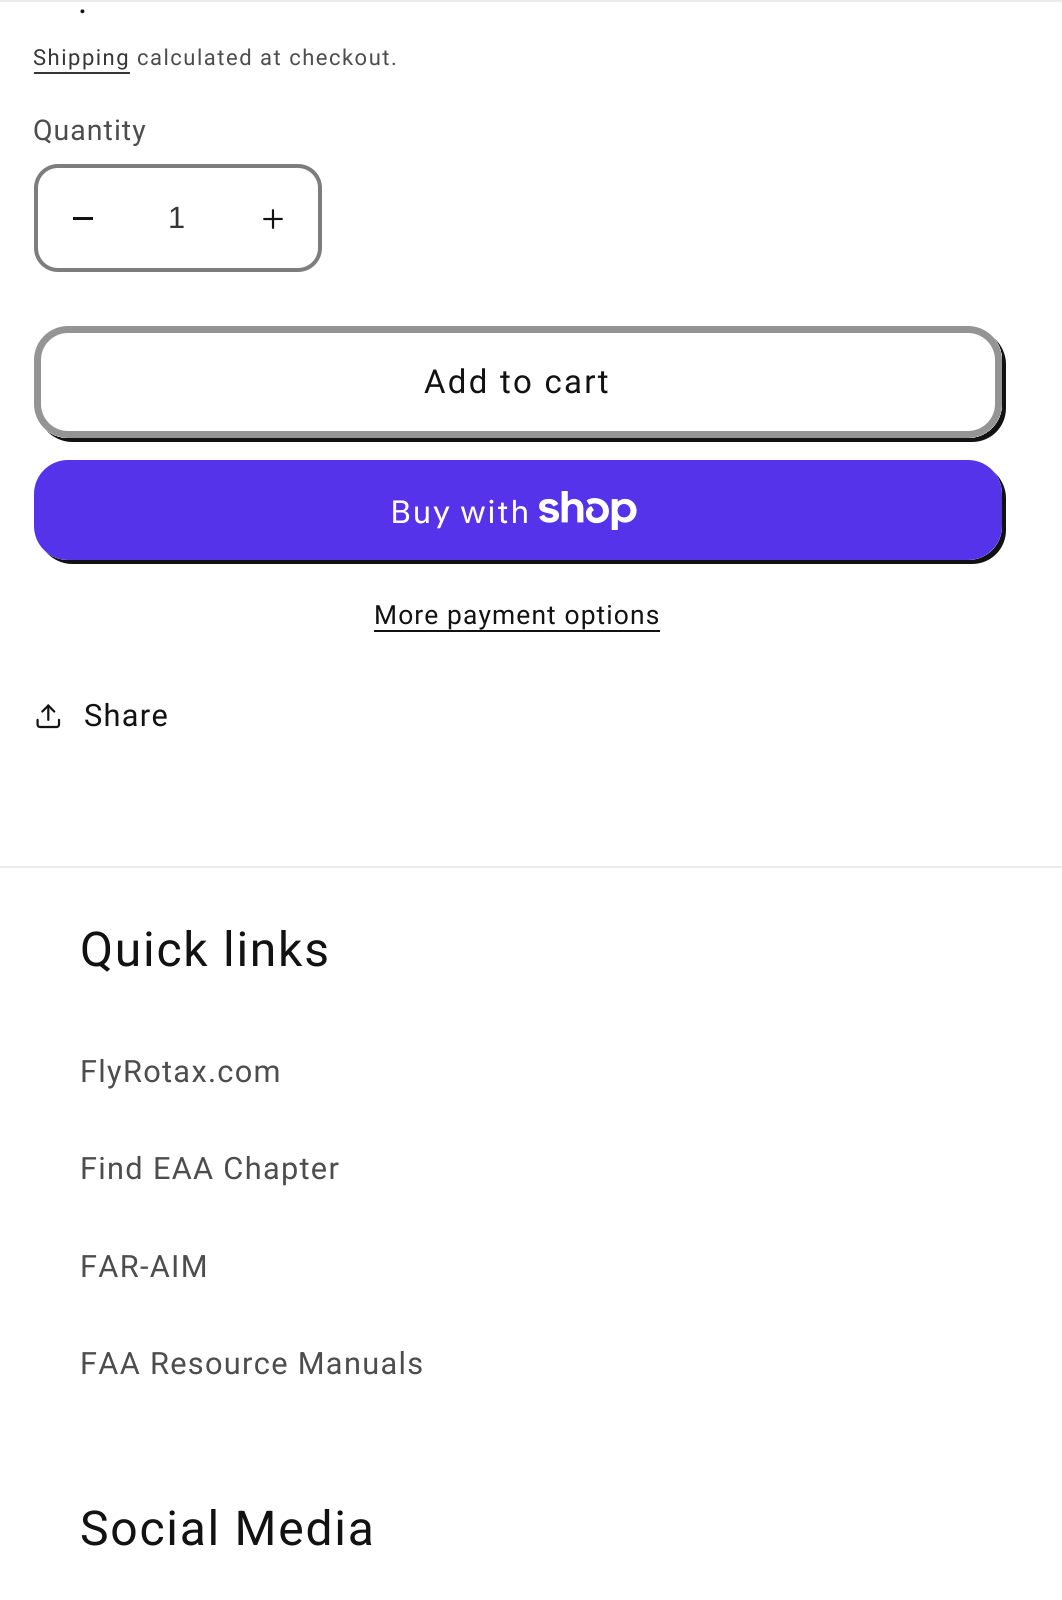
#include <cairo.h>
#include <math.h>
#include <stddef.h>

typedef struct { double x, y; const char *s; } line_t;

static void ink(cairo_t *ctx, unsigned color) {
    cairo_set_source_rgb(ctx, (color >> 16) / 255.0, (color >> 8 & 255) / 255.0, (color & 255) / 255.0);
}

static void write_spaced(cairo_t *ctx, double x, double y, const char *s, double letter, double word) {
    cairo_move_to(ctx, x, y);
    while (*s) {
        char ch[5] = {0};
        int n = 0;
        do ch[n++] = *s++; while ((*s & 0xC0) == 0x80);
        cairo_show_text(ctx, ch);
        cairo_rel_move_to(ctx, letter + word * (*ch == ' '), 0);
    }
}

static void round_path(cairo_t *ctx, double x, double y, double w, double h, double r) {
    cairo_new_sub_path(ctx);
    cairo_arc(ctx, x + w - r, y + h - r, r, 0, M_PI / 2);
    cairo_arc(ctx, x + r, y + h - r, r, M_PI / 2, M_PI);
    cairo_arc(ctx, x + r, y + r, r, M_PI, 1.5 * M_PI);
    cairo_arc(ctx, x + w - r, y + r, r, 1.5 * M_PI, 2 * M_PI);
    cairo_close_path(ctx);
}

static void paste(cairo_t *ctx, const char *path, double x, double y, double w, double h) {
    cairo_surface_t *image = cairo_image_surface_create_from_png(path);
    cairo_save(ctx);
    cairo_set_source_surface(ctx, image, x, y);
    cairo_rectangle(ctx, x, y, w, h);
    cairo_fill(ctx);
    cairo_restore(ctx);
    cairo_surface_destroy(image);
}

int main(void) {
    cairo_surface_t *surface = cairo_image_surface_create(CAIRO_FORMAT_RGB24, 1062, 1600);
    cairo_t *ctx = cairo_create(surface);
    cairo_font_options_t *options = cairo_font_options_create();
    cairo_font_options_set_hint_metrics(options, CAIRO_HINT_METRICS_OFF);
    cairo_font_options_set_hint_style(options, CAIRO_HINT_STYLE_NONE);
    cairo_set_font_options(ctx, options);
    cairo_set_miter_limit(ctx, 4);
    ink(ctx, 0xFFFFFF);
    cairo_paint(ctx);
    ink(ctx, 0xECECEC);
    cairo_rectangle(ctx, 0, 0, 1062, 2);
    cairo_fill(ctx);
    cairo_select_font_face(ctx, "Roboto", CAIRO_FONT_SLANT_NORMAL, CAIRO_FONT_WEIGHT_NORMAL);
    cairo_set_font_size(ctx, 35);
    ink(ctx, 0x121212);
    write_spaced(ctx, 78, 13, ".", 3, 0);
    cairo_set_font_size(ctx, 22);
    ink(ctx, 0x363636);
    write_spaced(ctx, 33, 65, "Shipping", 1.5, 0);
    cairo_rectangle(ctx, 34, 72, 96, 2);
    cairo_fill(ctx);
    ink(ctx, 0x4D4D4D);
    write_spaced(ctx, 137, 65, "calculated at checkout.", 1.5, 0);
    cairo_set_font_size(ctx, 28.5);
    write_spaced(ctx, 33, 140, "Quantity", 1, 0);
    ink(ctx, 0x121212);
    cairo_rectangle(ctx, 73, 217, 20, 3);
    cairo_fill(ctx);
    paste(ctx, "media/1.png", 263, 209, 20, 20);
    round_path(ctx, 36, 166, 284, 104, 22);
    ink(ctx, 0x7D7D7D);
    cairo_set_line_width(ctx, 4);
    cairo_stroke(ctx);
    cairo_select_font_face(ctx, "Liberation Sans", CAIRO_FONT_SLANT_NORMAL, CAIRO_FONT_WEIGHT_NORMAL);
    cairo_set_font_size(ctx, 30.75);
    ink(ctx, 0x363636);
    cairo_move_to(ctx, 168, 228);
    cairo_show_text(ctx, "1");
    ink(ctx, 0x121212);
    cairo_new_path(ctx);
    cairo_move_to(ctx, 46, 430);
    cairo_curve_to(ctx, 52, 437, 62, 442, 72, 442);
    cairo_line_to(ctx, 972, 442);
    cairo_curve_to(ctx, 991, 442, 1006, 427, 1006, 408);
    cairo_line_to(ctx, 1006, 364);
    cairo_curve_to(ctx, 1006, 354, 1001, 344, 994, 338);
    cairo_curve_to(ctx, 999, 344, 1002, 352, 1002, 360);
    cairo_line_to(ctx, 1002, 404);
    cairo_curve_to(ctx, 1002, 423, 987, 438, 968, 438);
    cairo_line_to(ctx, 68, 438);
    cairo_curve_to(ctx, 60, 438, 52, 435, 46, 430);
    cairo_close_path(ctx);
    cairo_fill(ctx);
    ink(ctx, 0xFFFFFF);
    round_path(ctx, 34, 326, 968, 112, 34);
    cairo_fill(ctx);
    round_path(ctx, 37, 329, 962, 106, 31);
    cairo_set_line_width(ctx, 6);
    cairo_stroke(ctx);
    round_path(ctx, 37.5, 329.5, 961, 105, 30.5);
    cairo_set_source_rgba(ctx, 0.071, 0.071, 0.071, 0.45);
    cairo_set_line_width(ctx, 7);
    cairo_stroke(ctx);
    cairo_select_font_face(ctx, "Roboto", CAIRO_FONT_SLANT_NORMAL, CAIRO_FONT_WEIGHT_NORMAL);
    cairo_set_font_size(ctx, 33);
    ink(ctx, 0x121212);
    write_spaced(ctx, 424, 393, "Add to cart", 2.25, 0);
    cairo_new_path(ctx);
    cairo_move_to(ctx, 46, 552);
    cairo_curve_to(ctx, 52, 559, 62, 564, 72, 564);
    cairo_line_to(ctx, 972, 564);
    cairo_curve_to(ctx, 991, 564, 1006, 549, 1006, 530);
    cairo_line_to(ctx, 1006, 498);
    cairo_curve_to(ctx, 1006, 488, 1001, 478, 994, 472);
    cairo_curve_to(ctx, 999, 478, 1002, 486, 1002, 494);
    cairo_line_to(ctx, 1002, 526);
    cairo_curve_to(ctx, 1002, 545, 987, 560, 968, 560);
    cairo_line_to(ctx, 68, 560);
    cairo_curve_to(ctx, 60, 560, 52, 557, 46, 552);
    cairo_close_path(ctx);
    cairo_fill(ctx);
    ink(ctx, 0x5433EB);
    round_path(ctx, 34, 460, 968, 100, 34);
    cairo_fill(ctx);
    cairo_select_font_face(ctx, "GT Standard", CAIRO_FONT_SLANT_NORMAL, CAIRO_FONT_WEIGHT_NORMAL);
    cairo_set_font_size(ctx, 32);
    ink(ctx, 0xFFFFFF);
    write_spaced(ctx, 390, 523, "Buy with", 1.3, 0);
    paste(ctx, "media/2.png", 539, 491, 98, 39);
    cairo_select_font_face(ctx, "Roboto", CAIRO_FONT_SLANT_NORMAL, CAIRO_FONT_WEIGHT_NORMAL);
    cairo_set_font_size(ctx, 26.4);
    ink(ctx, 0x121212);
    write_spaced(ctx, 374, 624, "More payment options", 1.1, 0);
    cairo_rectangle(ctx, 374, 630, 286, 2);
    cairo_fill(ctx);
    paste(ctx, "media/3.png", 36, 704, 25, 25);
    cairo_set_font_size(ctx, 30.75);
    write_spaced(ctx, 84, 726, "Share", 1.3, 0);
    ink(ctx, 0xECECEC);
    cairo_rectangle(ctx, 0, 866, 1062, 2);
    cairo_fill(ctx);
    cairo_set_font_size(ctx, 48);
    ink(ctx, 0x121212);
    write_spaced(ctx, 80, 966, "Quick links", 1.75, 0);
    cairo_set_font_size(ctx, 30.75);
    ink(ctx, 0x4D4D4D);
    {
        static const line_t items[] = {
            {80, 1082, "FlyRotax.com"},
            {80, 1179, "Find EAA Chapter"},
            {80, 1277, "FAR-AIM"},
            {80, 1374, "FAA Resource Manuals"},
        };
        for (size_t i = 0; i < sizeof items / sizeof *items; i++) {
            write_spaced(ctx, items[i].x, items[i].y, items[i].s, 1.3, 0);
        }
    }
    cairo_set_font_size(ctx, 48);
    ink(ctx, 0x121212);
    write_spaced(ctx, 80, 1545, "Social Media", 1.75, 0);
    cairo_surface_write_to_png(surface, "image.png");
    cairo_font_options_destroy(options);
    cairo_destroy(ctx);
    cairo_surface_destroy(surface);
    return 0;
}
